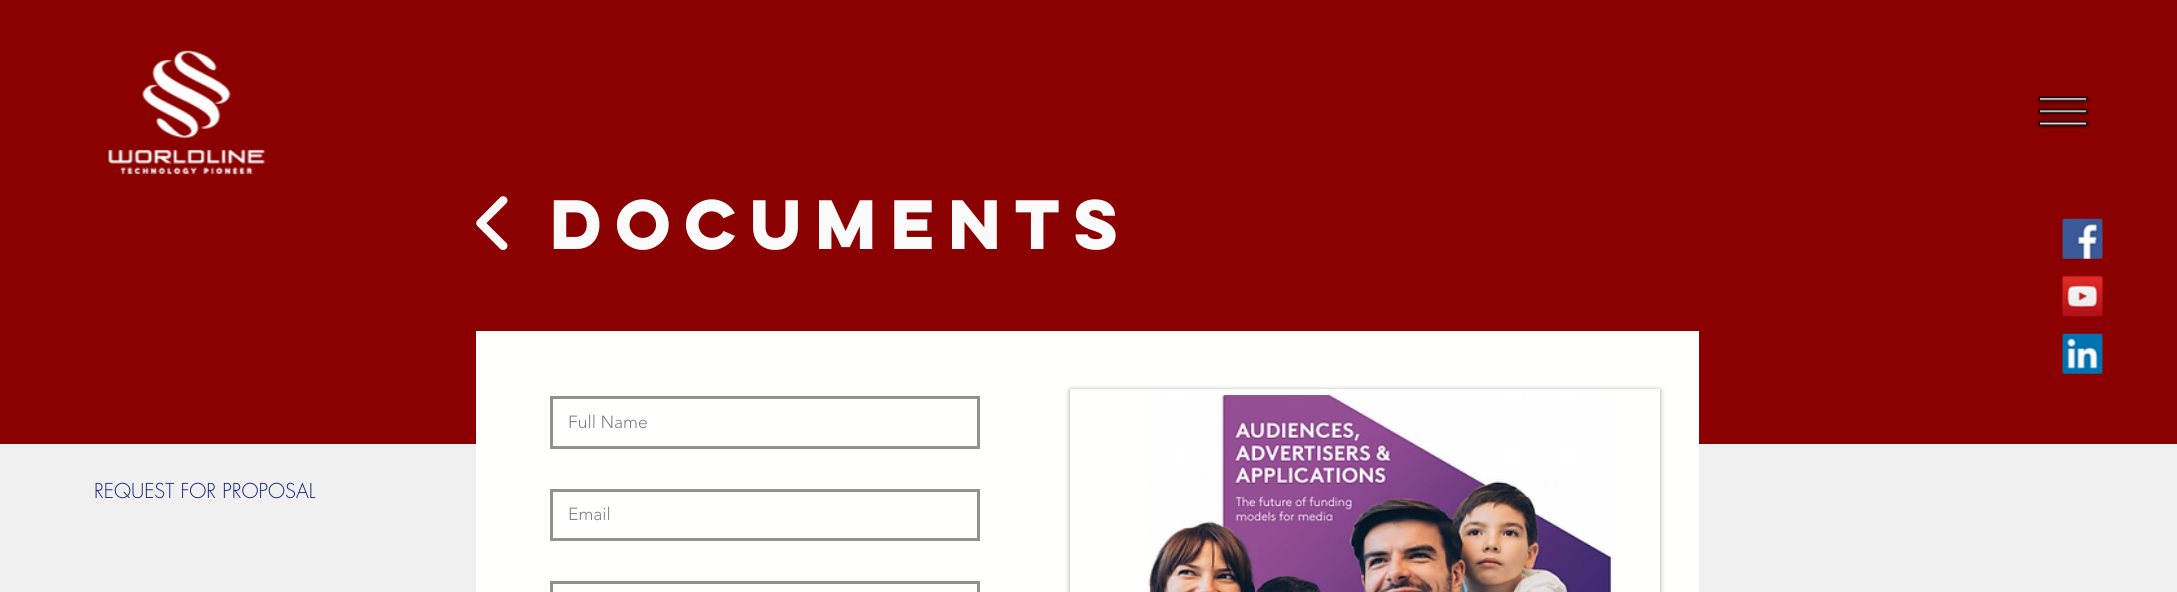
#include <cairo.h>
#include <math.h>
#include <stddef.h>


static void ink(cairo_t *ctx, unsigned color) {
    cairo_set_source_rgb(ctx, (color >> 16) / 255.0, (color >> 8 & 255) / 255.0, (color & 255) / 255.0);
}

static void round_path(cairo_t *ctx, double x, double y, double w, double h, double r) {
    cairo_new_sub_path(ctx);
    cairo_arc(ctx, x + w - r, y + h - r, r, 0, M_PI / 2);
    cairo_arc(ctx, x + r, y + h - r, r, M_PI / 2, M_PI);
    cairo_arc(ctx, x + r, y + r, r, M_PI, 1.5 * M_PI);
    cairo_arc(ctx, x + w - r, y + r, r, 1.5 * M_PI, 2 * M_PI);
    cairo_close_path(ctx);
}

static void blur_box(cairo_t *ctx, double x, double y, double w, double h, double r, double blur, double alpha) {
    cairo_push_group_with_content(ctx, CAIRO_CONTENT_ALPHA);
    cairo_set_operator(ctx, CAIRO_OPERATOR_SOURCE);
    for (int i = 15; i >= -15 && fmin(w, h) + blur * i / 3 > 0; i -= 2) {
        double e = blur * i / 6;
        cairo_set_source_rgba(ctx, 0, 0, 0, alpha * erfc((i - 1) / 8.5) / 2);
        round_path(ctx, x - e, y - e, w + 2 * e, h + 2 * e, fmax(0, fmin(r + e + blur * .6, fmin(w, h) / 2 + e)));
        cairo_fill(ctx);
    }
    cairo_pattern_t *soft = cairo_pop_group(ctx);
    cairo_mask(ctx, soft);
    cairo_pattern_destroy(soft);
}

static void paste(cairo_t *ctx, const char *path, double x, double y, double w, double h) {
    cairo_surface_t *image = cairo_image_surface_create_from_png(path);
    cairo_save(ctx);
    cairo_set_source_surface(ctx, image, x, y);
    cairo_rectangle(ctx, x, y, w, h);
    cairo_fill(ctx);
    cairo_restore(ctx);
    cairo_surface_destroy(image);
}

int main(void) {
    cairo_surface_t *surface = cairo_image_surface_create(CAIRO_FORMAT_RGB24, 2177, 592);
    cairo_t *ctx = cairo_create(surface);
    cairo_font_options_t *options = cairo_font_options_create();
    cairo_font_options_set_hint_metrics(options, CAIRO_HINT_METRICS_OFF);
    cairo_font_options_set_hint_style(options, CAIRO_HINT_STYLE_NONE);
    cairo_set_font_options(ctx, options);
    cairo_set_miter_limit(ctx, 4);
    ink(ctx, 0xF0F0F0);
    cairo_paint(ctx);
    ink(ctx, 0x8B0000);
    cairo_rectangle(ctx, 0, 0, 2177, 444);
    cairo_fill(ctx);
    paste(ctx, "media/1.png", 108, 50, 158, 125);
    paste(ctx, "media/2.png", 2036, 96, 56, 33);
    paste(ctx, "media/3.png", 476, 196, 32, 54);
    cairo_select_font_face(ctx, "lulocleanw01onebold", CAIRO_FONT_SLANT_NORMAL, CAIRO_FONT_WEIGHT_BOLD);
    cairo_set_font_size(ctx, 62.5);
    ink(ctx, 0xFAFAFA);
    cairo_move_to(ctx, 550, 249);
    cairo_show_text(ctx, "documents");
    ink(ctx, 0xFFFFFE);
    cairo_rectangle(ctx, 476, 331, 1223, 261);
    cairo_fill(ctx);
    cairo_rectangle(ctx, 551.5, 397.5, 427, 50);
    ink(ctx, 0x919191);
    cairo_set_line_width(ctx, 3);
    cairo_stroke(ctx);
    cairo_select_font_face(ctx, "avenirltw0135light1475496 Light", CAIRO_FONT_SLANT_NORMAL, CAIRO_FONT_WEIGHT_NORMAL);
    cairo_set_font_size(ctx, 17.5);
    ink(ctx, 0x7F808A);
    cairo_move_to(ctx, 568, 428);
    cairo_show_text(ctx, "Full Name");
    cairo_save(ctx);
    cairo_set_fill_rule(ctx, CAIRO_FILL_RULE_EVEN_ODD);
    cairo_new_path(ctx);
    cairo_move_to(ctx, 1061, 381);
    cairo_line_to(ctx, 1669, 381);
    cairo_line_to(ctx, 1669, 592);
    cairo_line_to(ctx, 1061, 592);
    cairo_close_path(ctx);
    cairo_move_to(ctx, 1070, 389);
    cairo_line_to(ctx, 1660, 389);
    cairo_line_to(ctx, 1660, 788);
    cairo_line_to(ctx, 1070, 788);
    cairo_close_path(ctx);
    cairo_clip(ctx);
    ink(ctx, 0x000000);
    blur_box(ctx, 1070, 390, 590, 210, 0, 2.5, 0.4);
    cairo_restore(ctx);
    paste(ctx, "media/4.png", 1148, 395, 464, 197);
    cairo_rectangle(ctx, 551.5, 490.5, 427, 49);
    ink(ctx, 0x919191);
    cairo_stroke(ctx);
    ink(ctx, 0x7F808A);
    cairo_move_to(ctx, 568, 520);
    cairo_show_text(ctx, "Email");
    cairo_rectangle(ctx, 551.5, 582.5, 427, 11);
    ink(ctx, 0x919191);
    cairo_stroke(ctx);
    paste(ctx, "media/5.png", 2062, 218, 41, 41);
    paste(ctx, "media/6.png", 2062, 275, 41, 42);
    paste(ctx, "media/7.png", 2062, 333, 41, 41);
    cairo_select_font_face(ctx, "futura Light", CAIRO_FONT_SLANT_NORMAL, CAIRO_FONT_WEIGHT_NORMAL);
    cairo_set_font_size(ctx, 20);
    ink(ctx, 0x17217B);
    cairo_move_to(ctx, 94, 498);
    cairo_show_text(ctx, "REQUEST FOR PROPOSAL");
    cairo_surface_write_to_png(surface, "image.png");
    cairo_font_options_destroy(options);
    cairo_destroy(ctx);
    cairo_surface_destroy(surface);
    return 0;
}
